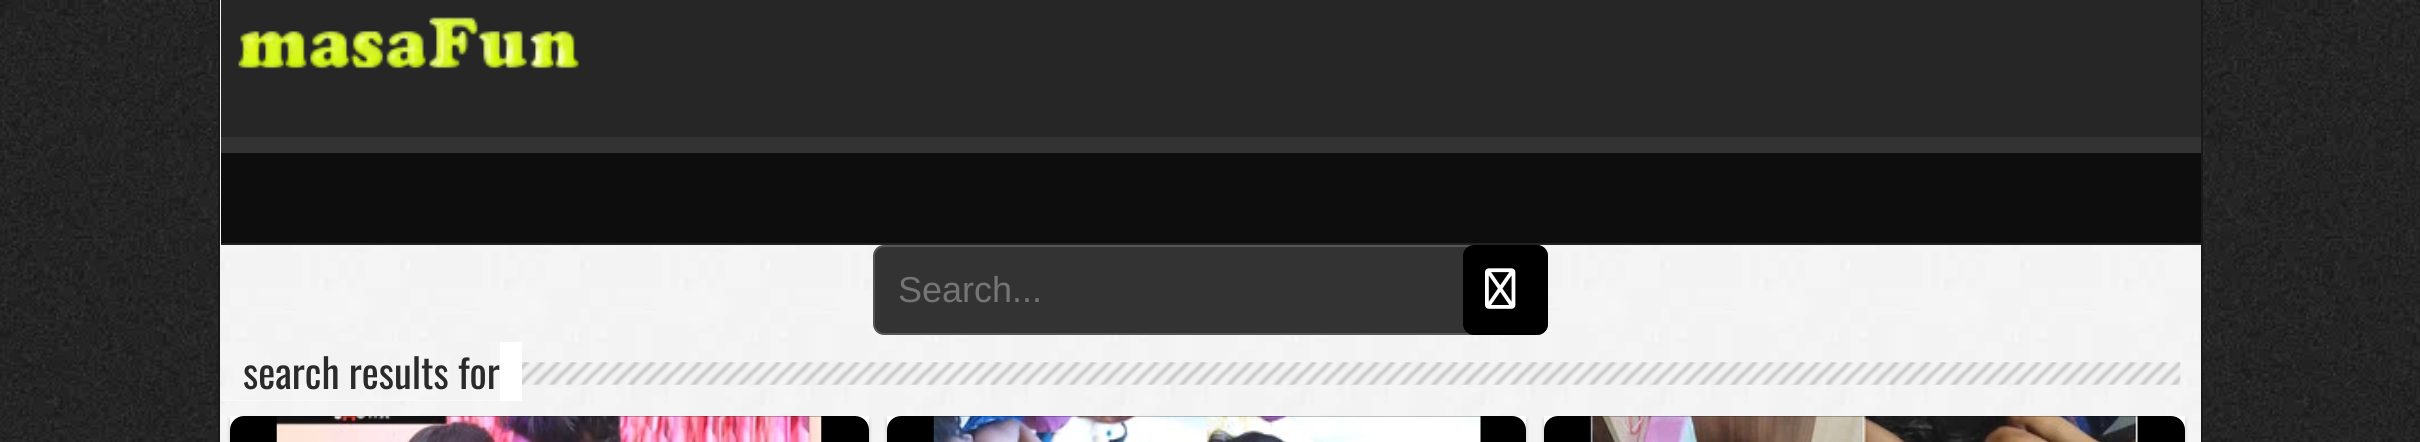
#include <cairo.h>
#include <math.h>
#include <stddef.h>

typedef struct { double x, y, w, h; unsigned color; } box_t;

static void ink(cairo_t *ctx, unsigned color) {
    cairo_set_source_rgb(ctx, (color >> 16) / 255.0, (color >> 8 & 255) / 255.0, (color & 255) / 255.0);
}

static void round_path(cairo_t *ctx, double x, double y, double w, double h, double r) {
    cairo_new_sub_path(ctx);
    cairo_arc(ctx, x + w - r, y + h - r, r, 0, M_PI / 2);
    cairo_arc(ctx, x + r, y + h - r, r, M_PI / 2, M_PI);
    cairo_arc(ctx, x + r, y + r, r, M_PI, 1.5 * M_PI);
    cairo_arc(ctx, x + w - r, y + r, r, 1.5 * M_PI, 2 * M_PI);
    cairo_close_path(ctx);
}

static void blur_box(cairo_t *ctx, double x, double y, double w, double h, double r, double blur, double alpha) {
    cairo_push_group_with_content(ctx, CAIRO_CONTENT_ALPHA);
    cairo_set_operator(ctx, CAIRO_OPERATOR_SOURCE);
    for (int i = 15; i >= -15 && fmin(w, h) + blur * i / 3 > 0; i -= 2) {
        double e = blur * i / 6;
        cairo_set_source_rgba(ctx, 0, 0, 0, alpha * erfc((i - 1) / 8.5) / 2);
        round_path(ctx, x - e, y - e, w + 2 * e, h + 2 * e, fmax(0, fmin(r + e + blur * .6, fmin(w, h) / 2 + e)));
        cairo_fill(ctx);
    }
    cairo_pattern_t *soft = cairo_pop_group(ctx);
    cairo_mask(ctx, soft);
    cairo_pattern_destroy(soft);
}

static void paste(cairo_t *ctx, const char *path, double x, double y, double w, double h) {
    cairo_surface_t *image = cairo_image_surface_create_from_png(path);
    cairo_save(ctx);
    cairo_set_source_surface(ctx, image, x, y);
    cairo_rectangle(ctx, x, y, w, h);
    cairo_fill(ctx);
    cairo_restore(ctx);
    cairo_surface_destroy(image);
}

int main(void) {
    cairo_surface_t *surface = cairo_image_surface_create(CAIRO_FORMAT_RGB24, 2420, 442);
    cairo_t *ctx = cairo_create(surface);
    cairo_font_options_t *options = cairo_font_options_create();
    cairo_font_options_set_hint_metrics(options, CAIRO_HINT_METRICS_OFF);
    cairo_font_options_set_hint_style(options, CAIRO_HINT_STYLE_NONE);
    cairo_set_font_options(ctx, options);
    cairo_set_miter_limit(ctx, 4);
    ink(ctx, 0xFFFFFF);
    cairo_paint(ctx);
    paste(ctx, "media/1.png", 0, 0, 2420, 442);
    paste(ctx, "media/2.png", 220, 0, 1981, 442);
    {
        static const box_t items[] = {
            {2201, 0, 2, 442, 0x191919},
            {218, 0, 2, 442, 0x191919},
            {221, 0, 1980, 137, 0x262626},
            {221, 137, 1980, 16, 0x333333},
        };
        for (size_t i = 0; i < sizeof items / sizeof *items; i++) {
            ink(ctx, items[i].color);
            cairo_rectangle(ctx, items[i].x, items[i].y, items[i].w, items[i].h);
            cairo_fill(ctx);
        }
    }
    paste(ctx, "media/3.png", 238, 17, 341, 52);
    ink(ctx, 0x0D0D0D);
    cairo_rectangle(ctx, 221, 153, 1980, 90);
    cairo_fill(ctx);
    ink(ctx, 0x222222);
    cairo_rectangle(ctx, 221, 243, 1980, 2);
    cairo_fill(ctx);
    ink(ctx, 0x333333);
    round_path(ctx, 874, 246, 673, 88, 10);
    cairo_fill_preserve(ctx);
    ink(ctx, 0x555555);
    cairo_stroke(ctx);
    cairo_select_font_face(ctx, "Liberation Sans", CAIRO_FONT_SLANT_NORMAL, CAIRO_FONT_WEIGHT_NORMAL);
    cairo_set_font_size(ctx, 36);
    ink(ctx, 0x757575);
    cairo_move_to(ctx, 898, 302);
    cairo_show_text(ctx, "Search...");
    ink(ctx, 0x000000);
    round_path(ctx, 1463, 245, 85, 90, 11);
    cairo_fill(ctx);
    paste(ctx, "media/4.png", 1485, 268, 31, 41);
    ink(ctx, 0xFFFFFF);
    cairo_rectangle(ctx, 221, 400, 279, 1);
    cairo_fill(ctx);
    paste(ctx, "media/6.png", 220, 362, 1961, 23);
    paste(ctx, "media/5.png", 220, 342, 280, 59);
    cairo_select_font_face(ctx, "Oswald", CAIRO_FONT_SLANT_NORMAL, CAIRO_FONT_WEIGHT_NORMAL);
    cairo_set_font_size(ctx, 40.5);
    ink(ctx, 0x2A2A2A);
    cairo_move_to(ctx, 243, 389);
    cairo_show_text(ctx, "search results for");
    ink(ctx, 0xFFFFFF);
    cairo_rectangle(ctx, 500, 342, 22, 59);
    cairo_fill(ctx);
    ink(ctx, 0x000000);
    blur_box(ctx, 230, 419, 639, 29, 0, 2, 0.2);
    ink(ctx, 0xFFFFFF);
    cairo_rectangle(ctx, 230, 416, 639, 14);
    cairo_fill(ctx);
    ink(ctx, 0x000000);
    round_path(ctx, 230, 416, 639, 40, 14);
    cairo_fill(ctx);
    paste(ctx, "media/7.png", 276, 416, 546, 26);
    ink(ctx, 0x000000);
    blur_box(ctx, 887, 419, 639, 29, 0, 2, 0.2);
    ink(ctx, 0xFFFFFF);
    cairo_rectangle(ctx, 887, 416, 639, 14);
    cairo_fill(ctx);
    ink(ctx, 0x000000);
    round_path(ctx, 887, 416, 639, 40, 14);
    cairo_fill(ctx);
    paste(ctx, "media/8.png", 933, 416, 548, 26);
    ink(ctx, 0x000000);
    blur_box(ctx, 1544, 419, 641, 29, 0, 2, 0.2);
    ink(ctx, 0xFFFFFF);
    cairo_rectangle(ctx, 1544, 416, 641, 14);
    cairo_fill(ctx);
    ink(ctx, 0x000000);
    round_path(ctx, 1544, 416, 641, 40, 14);
    cairo_fill(ctx);
    paste(ctx, "media/9.png", 1590, 416, 548, 26);
    cairo_surface_write_to_png(surface, "image.png");
    cairo_font_options_destroy(options);
    cairo_destroy(ctx);
    cairo_surface_destroy(surface);
    return 0;
}
